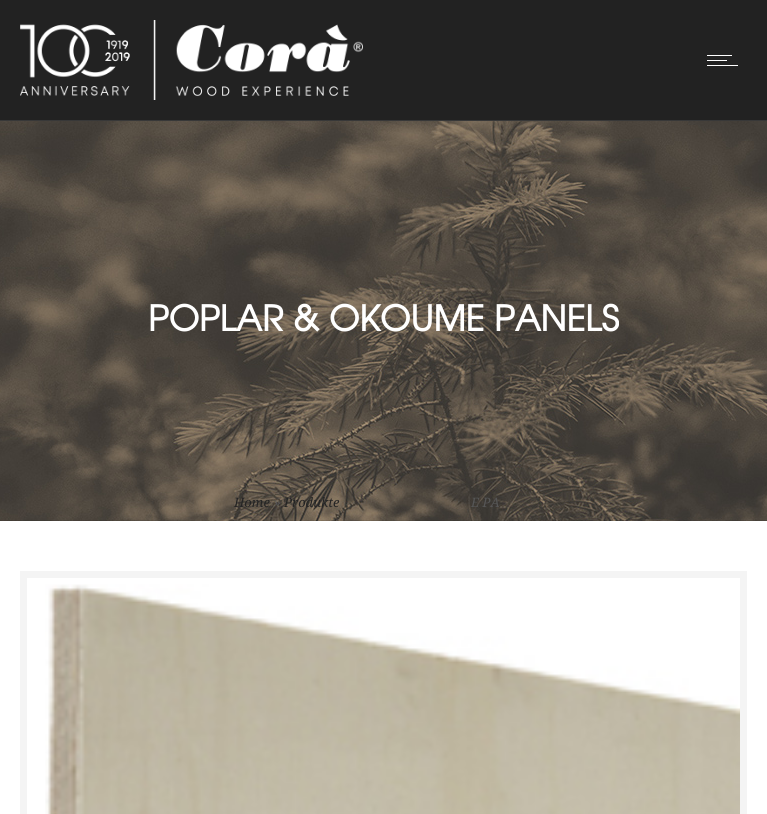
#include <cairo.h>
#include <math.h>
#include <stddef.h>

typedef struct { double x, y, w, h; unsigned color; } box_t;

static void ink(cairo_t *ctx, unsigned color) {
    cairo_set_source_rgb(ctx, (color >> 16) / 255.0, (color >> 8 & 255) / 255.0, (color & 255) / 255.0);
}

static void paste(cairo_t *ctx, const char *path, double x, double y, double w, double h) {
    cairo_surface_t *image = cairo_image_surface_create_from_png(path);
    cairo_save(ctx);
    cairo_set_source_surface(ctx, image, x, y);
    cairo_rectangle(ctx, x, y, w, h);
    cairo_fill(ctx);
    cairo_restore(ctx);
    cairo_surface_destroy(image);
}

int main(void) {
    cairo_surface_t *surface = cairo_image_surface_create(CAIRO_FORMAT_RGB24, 767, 814);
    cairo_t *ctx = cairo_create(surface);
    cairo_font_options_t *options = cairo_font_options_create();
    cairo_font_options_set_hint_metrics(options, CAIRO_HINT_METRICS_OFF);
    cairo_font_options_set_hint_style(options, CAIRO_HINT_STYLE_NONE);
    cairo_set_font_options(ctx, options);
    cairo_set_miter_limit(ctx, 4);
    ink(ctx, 0xFFFFFF);
    cairo_paint(ctx);
    ink(ctx, 0x222222);
    cairo_rectangle(ctx, 0, 0, 767, 120);
    cairo_fill(ctx);
    ink(ctx, 0x383838);
    cairo_rectangle(ctx, 0, 120, 767, 1);
    cairo_fill(ctx);
    paste(ctx, "media/1.png", 20, 20, 343, 80);
    {
        static const box_t items[] = {
            {707, 55, 25, 1, 0xFFFFFF},
            {707, 60, 20, 1, 0xFFFFFF},
            {707, 65, 31, 1, 0xFFFFFF},
        };
        for (size_t i = 0; i < sizeof items / sizeof *items; i++) {
            ink(ctx, items[i].color);
            cairo_rectangle(ctx, items[i].x, items[i].y, items[i].w, items[i].h);
            cairo_fill(ctx);
        }
    }
    paste(ctx, "media/2.png", 0, 121, 767, 400);
    cairo_set_source_rgba(ctx, 0.106, 0.106, 0.106, 0.1);
    cairo_rectangle(ctx, 0, 520, 767, 1);
    cairo_fill(ctx);
    cairo_select_font_face(ctx, "TeX Gyre Adventor", CAIRO_FONT_SLANT_NORMAL, CAIRO_FONT_WEIGHT_BOLD);
    cairo_set_font_size(ctx, 35);
    ink(ctx, 0xFFFFFF);
    cairo_move_to(ctx, 148, 331);
    cairo_show_text(ctx, "POPLAR & OKOUME PANELS");
    cairo_select_font_face(ctx, "Droid Serif", CAIRO_FONT_SLANT_ITALIC, CAIRO_FONT_WEIGHT_NORMAL);
    cairo_set_font_size(ctx, 13);
    ink(ctx, 0x242424);
    cairo_move_to(ctx, 234, 507);
    cairo_show_text(ctx, "Home");
    ink(ctx, 0x565656);
    cairo_move_to(ctx, 274, 507);
    cairo_show_text(ctx, "»");
    ink(ctx, 0x242424);
    cairo_move_to(ctx, 284, 507);
    cairo_show_text(ctx, "Produkte");
    ink(ctx, 0x565656);
    cairo_move_to(ctx, 471, 507);
    cairo_show_text(ctx, "E PA");
    cairo_rectangle(ctx, 23.5, 574.5, 720, 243);
    ink(ctx, 0xF4F4F4);
    cairo_set_line_width(ctx, 7);
    cairo_stroke(ctx);
    paste(ctx, "media/3.png", 45, 584, 695, 230);
    cairo_surface_write_to_png(surface, "image.png");
    cairo_font_options_destroy(options);
    cairo_destroy(ctx);
    cairo_surface_destroy(surface);
    return 0;
}
